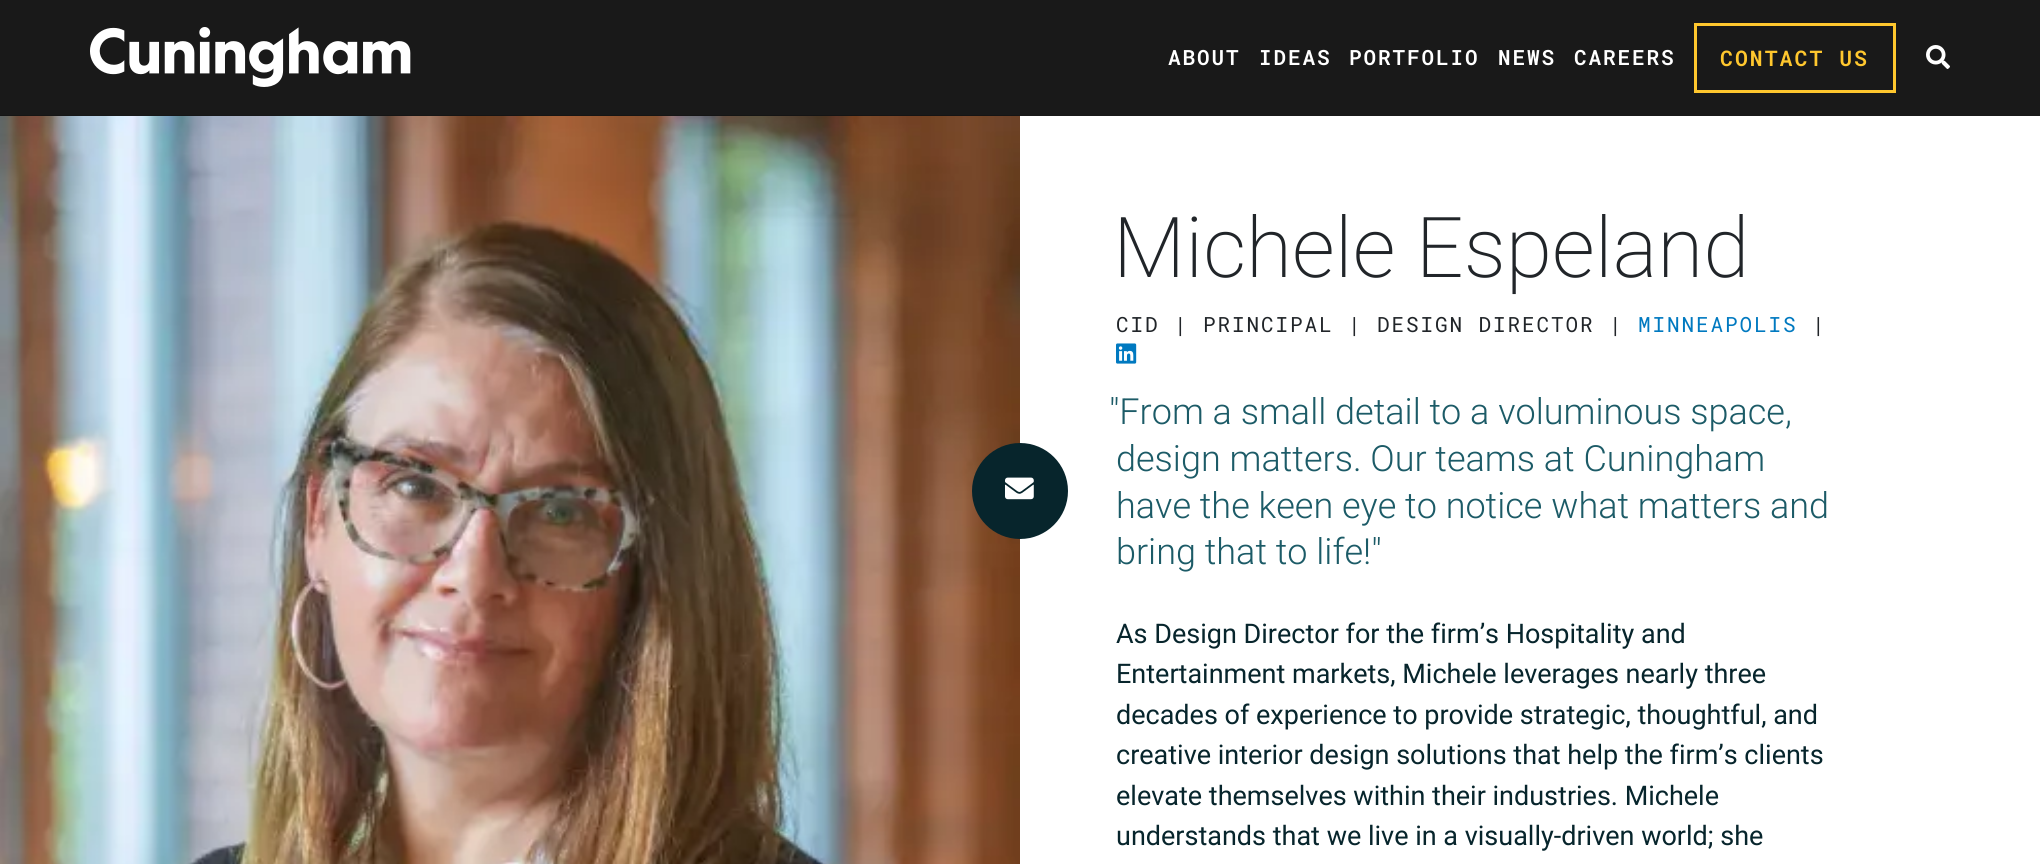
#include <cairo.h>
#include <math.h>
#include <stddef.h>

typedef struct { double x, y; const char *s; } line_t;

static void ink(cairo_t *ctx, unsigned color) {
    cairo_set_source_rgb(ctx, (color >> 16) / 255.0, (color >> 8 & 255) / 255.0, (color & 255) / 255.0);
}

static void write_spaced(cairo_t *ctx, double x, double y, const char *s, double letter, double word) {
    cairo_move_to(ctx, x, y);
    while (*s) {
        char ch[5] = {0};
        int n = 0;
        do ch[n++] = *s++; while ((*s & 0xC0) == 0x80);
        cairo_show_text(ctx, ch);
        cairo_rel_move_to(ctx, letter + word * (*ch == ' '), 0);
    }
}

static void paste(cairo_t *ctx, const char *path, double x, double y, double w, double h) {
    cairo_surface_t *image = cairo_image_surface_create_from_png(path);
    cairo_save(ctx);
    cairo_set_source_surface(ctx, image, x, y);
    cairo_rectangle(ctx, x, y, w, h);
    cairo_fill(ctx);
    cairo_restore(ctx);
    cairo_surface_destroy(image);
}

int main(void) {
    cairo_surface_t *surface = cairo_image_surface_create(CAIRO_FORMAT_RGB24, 2040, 864);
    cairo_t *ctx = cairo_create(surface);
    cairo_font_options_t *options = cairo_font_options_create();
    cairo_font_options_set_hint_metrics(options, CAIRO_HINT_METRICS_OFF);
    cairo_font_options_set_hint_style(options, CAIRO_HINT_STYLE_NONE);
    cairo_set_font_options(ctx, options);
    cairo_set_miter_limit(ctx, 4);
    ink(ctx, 0xFFFFFF);
    cairo_paint(ctx);
    paste(ctx, "media/3.png", 0, 115, 1020, 749);
    cairo_set_source_rgba(ctx, 0, 0, 0, 0.9);
    cairo_rectangle(ctx, 0, 0, 2040, 116);
    cairo_fill(ctx);
    paste(ctx, "media/1.png", 90, 27, 321, 60);
    cairo_select_font_face(ctx, "Roboto Mono SemiBold", CAIRO_FONT_SLANT_NORMAL, CAIRO_FONT_WEIGHT_NORMAL);
    cairo_set_font_size(ctx, 21);
    ink(ctx, 0xFFFFFF);
    {
        static const line_t items[] = {
            {1168, 65, "ABOUT"},
            {1259, 65, "IDEAS"},
            {1349, 65, "PORTFOLIO"},
            {1498, 65, "NEWS"},
            {1574, 65, "CAREERS"},
        };
        for (size_t i = 0; i < sizeof items / sizeof *items; i++) {
            write_spaced(ctx, items[i].x, items[i].y, items[i].s, 1.9, 0);
        }
    }
    cairo_rectangle(ctx, 1695.5, 24.5, 199, 67);
    ink(ctx, 0xFFC72E);
    cairo_set_line_width(ctx, 3);
    cairo_stroke(ctx);
    cairo_set_font_size(ctx, 21.5);
    write_spaced(ctx, 1720, 66, "CONTACT US", 2, 0);
    paste(ctx, "media/2.png", 1926, 45, 24, 24);
    cairo_select_font_face(ctx, "Roboto ExtraLight", CAIRO_FONT_SLANT_NORMAL, CAIRO_FONT_WEIGHT_NORMAL);
    cairo_set_font_size(ctx, 84);
    ink(ctx, 0x212529);
    cairo_move_to(ctx, 1113, 277);
    cairo_show_text(ctx, "Michele Espeland");
    cairo_select_font_face(ctx, "Roboto Mono", CAIRO_FONT_SLANT_NORMAL, CAIRO_FONT_WEIGHT_NORMAL);
    cairo_set_font_size(ctx, 21);
    write_spaced(ctx, 1116, 332, "CID | PRINCIPAL | DESIGN DIRECTOR |", 1.9, 0);
    ink(ctx, 0x0079C0);
    write_spaced(ctx, 1638, 332, "MINNEAPOLIS", 1.9, 0);
    ink(ctx, 0x212529);
    write_spaced(ctx, 1812, 332, "|", 1.9, 0);
    paste(ctx, "media/4.png", 1116, 343, 21, 21);
    cairo_select_font_face(ctx, "Roboto Light", CAIRO_FONT_SLANT_NORMAL, CAIRO_FONT_WEIGHT_NORMAL);
    cairo_set_font_size(ctx, 36);
    ink(ctx, 0x1C5B67);
    {
        static const line_t items[] = {
            {1109, 424, "\"From a small detail to a voluminous space,"},
            {1116, 471, "design matters. Our teams at Cuningham"},
            {1116, 518, "have the keen eye to notice what matters and"},
            {1116, 564, "bring that to life!\""},
        };
        for (size_t i = 0; i < sizeof items / sizeof *items; i++) {
            cairo_move_to(ctx, items[i].x, items[i].y);
            cairo_show_text(ctx, items[i].s);
        }
    }
    cairo_select_font_face(ctx, "Roboto", CAIRO_FONT_SLANT_NORMAL, CAIRO_FONT_WEIGHT_NORMAL);
    cairo_set_font_size(ctx, 27);
    ink(ctx, 0x07252C);
    {
        static const line_t items[] = {
            {1116, 643, "As Design Director for the firm’s Hospitality and"},
            {1116, 683, "Entertainment markets, Michele leverages nearly three"},
            {1116, 724, "decades of experience to provide strategic, thoughtful, and"},
            {1116, 764, "creative interior design solutions that help the firm’s clients"},
            {1116, 805, "elevate themselves within their industries. Michele"},
            {1116, 845, "understands that we live in a visually-driven world; she"},
        };
        for (size_t i = 0; i < sizeof items / sizeof *items; i++) {
            cairo_move_to(ctx, items[i].x, items[i].y);
            cairo_show_text(ctx, items[i].s);
        }
    }
    cairo_new_path(ctx);
    cairo_arc(ctx, 1020, 491, 48, 0, 2 * M_PI);
    cairo_fill(ctx);
    paste(ctx, "media/5.png", 1005, 477, 29, 23);
    cairo_surface_write_to_png(surface, "image.png");
    cairo_font_options_destroy(options);
    cairo_destroy(ctx);
    cairo_surface_destroy(surface);
    return 0;
}
